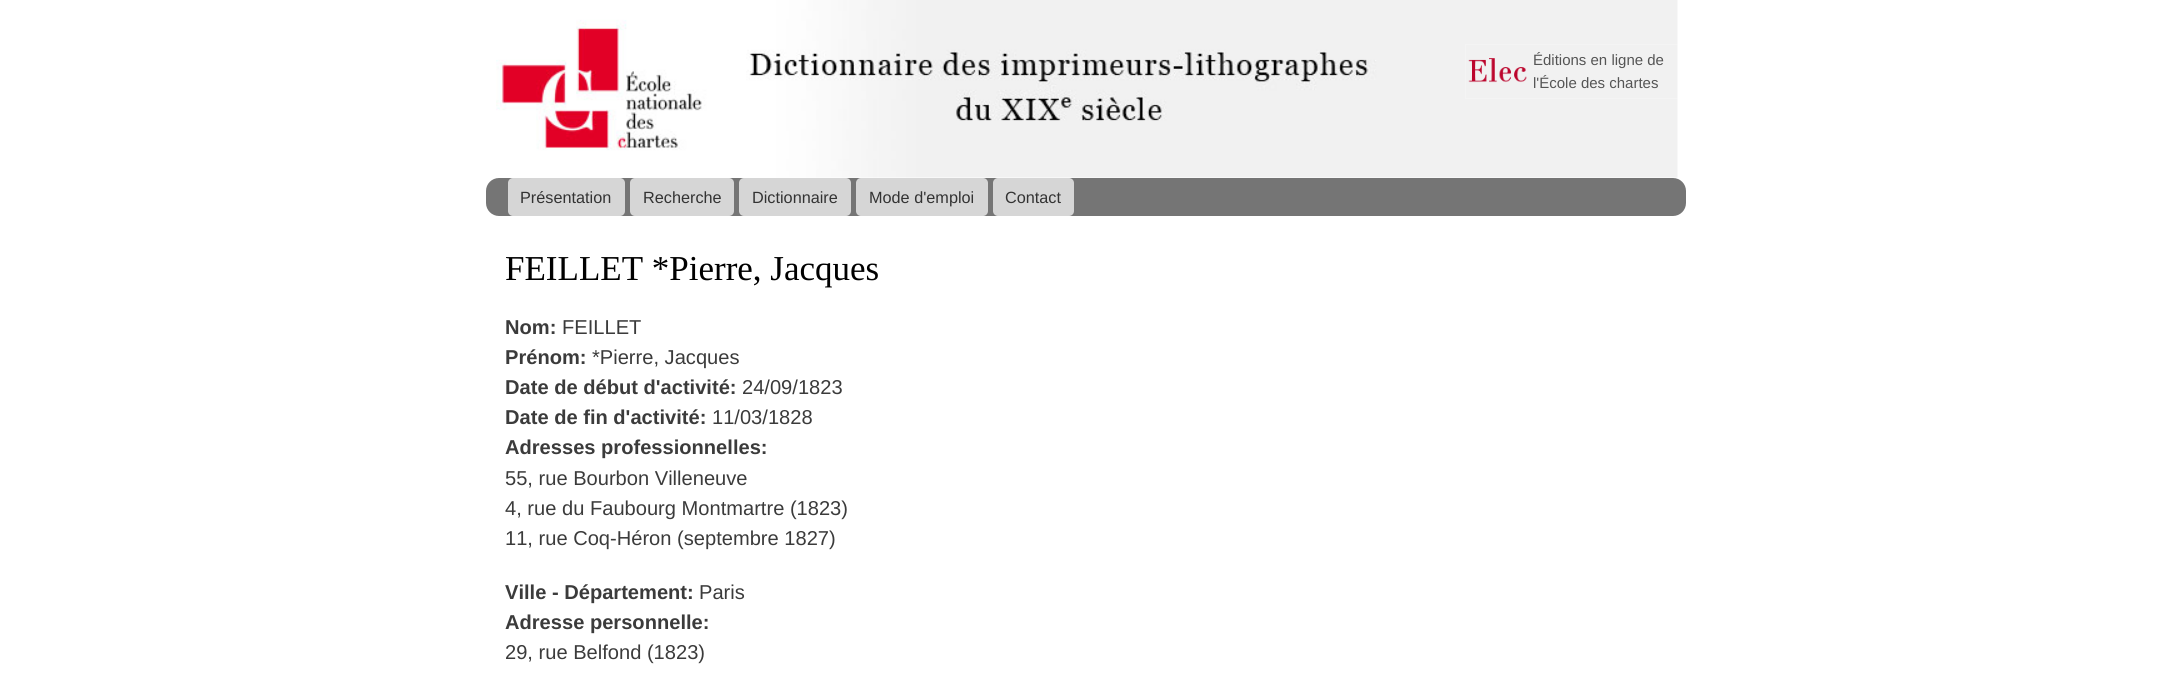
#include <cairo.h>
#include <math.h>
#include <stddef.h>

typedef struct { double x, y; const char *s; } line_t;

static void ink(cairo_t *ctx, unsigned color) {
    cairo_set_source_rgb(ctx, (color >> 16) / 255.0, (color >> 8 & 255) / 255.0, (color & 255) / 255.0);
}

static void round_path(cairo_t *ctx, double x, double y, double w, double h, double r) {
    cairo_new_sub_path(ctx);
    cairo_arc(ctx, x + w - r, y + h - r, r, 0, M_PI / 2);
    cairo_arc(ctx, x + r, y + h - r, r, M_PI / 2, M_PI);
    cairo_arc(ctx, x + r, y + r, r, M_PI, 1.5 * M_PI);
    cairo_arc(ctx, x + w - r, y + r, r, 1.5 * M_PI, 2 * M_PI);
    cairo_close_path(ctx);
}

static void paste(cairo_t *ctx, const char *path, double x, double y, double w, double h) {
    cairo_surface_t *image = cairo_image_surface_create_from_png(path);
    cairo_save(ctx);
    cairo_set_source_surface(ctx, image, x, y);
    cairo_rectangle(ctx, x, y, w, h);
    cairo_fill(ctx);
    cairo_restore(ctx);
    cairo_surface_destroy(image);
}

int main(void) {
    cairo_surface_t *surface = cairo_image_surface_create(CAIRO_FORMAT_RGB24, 2172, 686);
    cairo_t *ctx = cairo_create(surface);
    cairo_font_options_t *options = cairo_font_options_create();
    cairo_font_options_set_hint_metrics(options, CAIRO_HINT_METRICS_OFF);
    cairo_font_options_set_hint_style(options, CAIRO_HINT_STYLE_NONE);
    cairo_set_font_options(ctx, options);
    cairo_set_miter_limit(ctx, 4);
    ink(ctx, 0xFFFFFF);
    cairo_paint(ctx);
    paste(ctx, "media/1.png", 496, 0, 1182, 178);
    paste(ctx, "media/2.png", 1468, 58, 59, 25);
    cairo_rectangle(ctx, 1465.5, 44.5, 214, 54);
    cairo_set_source_rgba(ctx, 1, 1, 1, 0.2);
    cairo_set_line_width(ctx, 1);
    cairo_stroke(ctx);
    cairo_select_font_face(ctx, "Liberation Sans", CAIRO_FONT_SLANT_NORMAL, CAIRO_FONT_WEIGHT_NORMAL);
    cairo_set_font_size(ctx, 15);
    ink(ctx, 0x555555);
    cairo_move_to(ctx, 1533, 65);
    cairo_show_text(ctx, "Éditions en ligne de");
    cairo_move_to(ctx, 1533, 88);
    cairo_show_text(ctx, "l'École des chartes");
    ink(ctx, 0x757575);
    round_path(ctx, 486, 178, 1200, 38, 13);
    cairo_fill(ctx);
    ink(ctx, 0xD6D6D6);
    round_path(ctx, 508, 178, 117, 38, 5);
    cairo_fill(ctx);
    cairo_set_font_size(ctx, 16.25);
    ink(ctx, 0x333333);
    cairo_move_to(ctx, 520, 203);
    cairo_show_text(ctx, "Présentation");
    ink(ctx, 0xD6D6D6);
    round_path(ctx, 630, 178, 104, 38, 5);
    cairo_fill(ctx);
    ink(ctx, 0x333333);
    cairo_move_to(ctx, 643, 203);
    cairo_show_text(ctx, "Recherche");
    ink(ctx, 0xD6D6D6);
    round_path(ctx, 739, 178, 112, 38, 5);
    cairo_fill(ctx);
    ink(ctx, 0x333333);
    cairo_move_to(ctx, 752, 203);
    cairo_show_text(ctx, "Dictionnaire");
    ink(ctx, 0xD6D6D6);
    round_path(ctx, 856, 178, 132, 38, 5);
    cairo_fill(ctx);
    ink(ctx, 0x333333);
    cairo_move_to(ctx, 869, 203);
    cairo_show_text(ctx, "Mode d'emploi");
    ink(ctx, 0xD6D6D6);
    round_path(ctx, 993, 178, 81, 38, 5);
    cairo_fill(ctx);
    ink(ctx, 0x333333);
    cairo_move_to(ctx, 1005, 203);
    cairo_show_text(ctx, "Contact");
    cairo_select_font_face(ctx, "Liberation Serif", CAIRO_FONT_SLANT_NORMAL, CAIRO_FONT_WEIGHT_NORMAL);
    cairo_set_font_size(ctx, 35);
    ink(ctx, 0x000000);
    cairo_move_to(ctx, 505, 280);
    cairo_show_text(ctx, "FEILLET *Pierre, Jacques");
    cairo_select_font_face(ctx, "Liberation Sans", CAIRO_FONT_SLANT_NORMAL, CAIRO_FONT_WEIGHT_BOLD);
    cairo_set_font_size(ctx, 20.1);
    ink(ctx, 0x3B3B3B);
    cairo_move_to(ctx, 505, 334);
    cairo_show_text(ctx, "Nom:");
    cairo_select_font_face(ctx, "Liberation Sans", CAIRO_FONT_SLANT_NORMAL, CAIRO_FONT_WEIGHT_NORMAL);
    cairo_move_to(ctx, 562, 334);
    cairo_show_text(ctx, "FEILLET");
    cairo_select_font_face(ctx, "Liberation Sans", CAIRO_FONT_SLANT_NORMAL, CAIRO_FONT_WEIGHT_BOLD);
    cairo_move_to(ctx, 505, 364);
    cairo_show_text(ctx, "Prénom:");
    cairo_select_font_face(ctx, "Liberation Sans", CAIRO_FONT_SLANT_NORMAL, CAIRO_FONT_WEIGHT_NORMAL);
    cairo_move_to(ctx, 592, 364);
    cairo_show_text(ctx, "*Pierre, Jacques");
    cairo_select_font_face(ctx, "Liberation Sans", CAIRO_FONT_SLANT_NORMAL, CAIRO_FONT_WEIGHT_BOLD);
    cairo_move_to(ctx, 505, 394);
    cairo_show_text(ctx, "Date de début d'activité:");
    cairo_select_font_face(ctx, "Liberation Sans", CAIRO_FONT_SLANT_NORMAL, CAIRO_FONT_WEIGHT_NORMAL);
    cairo_move_to(ctx, 742, 394);
    cairo_show_text(ctx, "24/09/1823");
    cairo_select_font_face(ctx, "Liberation Sans", CAIRO_FONT_SLANT_NORMAL, CAIRO_FONT_WEIGHT_BOLD);
    cairo_move_to(ctx, 505, 424);
    cairo_show_text(ctx, "Date de fin d'activité:");
    cairo_select_font_face(ctx, "Liberation Sans", CAIRO_FONT_SLANT_NORMAL, CAIRO_FONT_WEIGHT_NORMAL);
    cairo_move_to(ctx, 712, 424);
    cairo_show_text(ctx, "11/03/1828");
    cairo_select_font_face(ctx, "Liberation Sans", CAIRO_FONT_SLANT_NORMAL, CAIRO_FONT_WEIGHT_BOLD);
    cairo_move_to(ctx, 505, 454);
    cairo_show_text(ctx, "Adresses professionnelles:");
    cairo_select_font_face(ctx, "Liberation Sans", CAIRO_FONT_SLANT_NORMAL, CAIRO_FONT_WEIGHT_NORMAL);
    {
        static const line_t items[] = {
            {505, 485, "55, rue Bourbon Villeneuve"},
            {505, 515, "4, rue du Faubourg Montmartre (1823)"},
            {505, 545, "11, rue Coq-Héron (septembre 1827)"},
        };
        for (size_t i = 0; i < sizeof items / sizeof *items; i++) {
            cairo_move_to(ctx, items[i].x, items[i].y);
            cairo_show_text(ctx, items[i].s);
        }
    }
    cairo_select_font_face(ctx, "Liberation Sans", CAIRO_FONT_SLANT_NORMAL, CAIRO_FONT_WEIGHT_BOLD);
    cairo_move_to(ctx, 505, 599);
    cairo_show_text(ctx, "Ville - Département:");
    cairo_select_font_face(ctx, "Liberation Sans", CAIRO_FONT_SLANT_NORMAL, CAIRO_FONT_WEIGHT_NORMAL);
    cairo_move_to(ctx, 699, 599);
    cairo_show_text(ctx, "Paris");
    cairo_select_font_face(ctx, "Liberation Sans", CAIRO_FONT_SLANT_NORMAL, CAIRO_FONT_WEIGHT_BOLD);
    cairo_move_to(ctx, 505, 629);
    cairo_show_text(ctx, "Adresse personnelle:");
    cairo_select_font_face(ctx, "Liberation Sans", CAIRO_FONT_SLANT_NORMAL, CAIRO_FONT_WEIGHT_NORMAL);
    cairo_move_to(ctx, 505, 659);
    cairo_show_text(ctx, "29, rue Belfond (1823)");
    cairo_surface_write_to_png(surface, "image.png");
    cairo_font_options_destroy(options);
    cairo_destroy(ctx);
    cairo_surface_destroy(surface);
    return 0;
}
